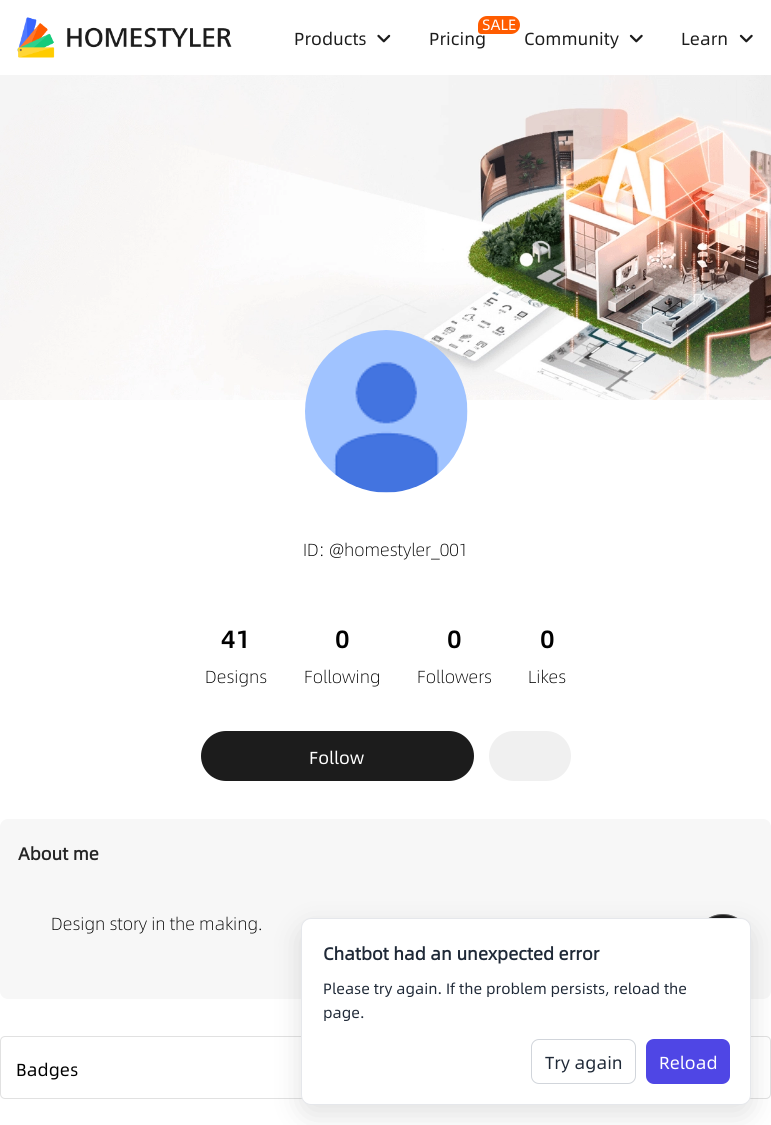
#include <cairo.h>
#include <math.h>
#include <stddef.h>


static void ink(cairo_t *ctx, unsigned color) {
    cairo_set_source_rgb(ctx, (color >> 16) / 255.0, (color >> 8 & 255) / 255.0, (color & 255) / 255.0);
}

static void round_path(cairo_t *ctx, double x, double y, double w, double h, double r) {
    cairo_new_sub_path(ctx);
    cairo_arc(ctx, x + w - r, y + h - r, r, 0, M_PI / 2);
    cairo_arc(ctx, x + r, y + h - r, r, M_PI / 2, M_PI);
    cairo_arc(ctx, x + r, y + r, r, M_PI, 1.5 * M_PI);
    cairo_arc(ctx, x + w - r, y + r, r, 1.5 * M_PI, 2 * M_PI);
    cairo_close_path(ctx);
}

static void blur_box(cairo_t *ctx, double x, double y, double w, double h, double r, double blur, double alpha) {
    cairo_push_group_with_content(ctx, CAIRO_CONTENT_ALPHA);
    cairo_set_operator(ctx, CAIRO_OPERATOR_SOURCE);
    for (int i = 15; i >= -15 && fmin(w, h) + blur * i / 3 > 0; i -= 2) {
        double e = blur * i / 6;
        cairo_set_source_rgba(ctx, 0, 0, 0, alpha * erfc((i - 1) / 8.5) / 2);
        round_path(ctx, x - e, y - e, w + 2 * e, h + 2 * e, fmax(0, fmin(r + e + blur * .6, fmin(w, h) / 2 + e)));
        cairo_fill(ctx);
    }
    cairo_pattern_t *soft = cairo_pop_group(ctx);
    cairo_mask(ctx, soft);
    cairo_pattern_destroy(soft);
}

static void paste(cairo_t *ctx, const char *path, double x, double y, double w, double h) {
    cairo_surface_t *image = cairo_image_surface_create_from_png(path);
    cairo_save(ctx);
    cairo_set_source_surface(ctx, image, x, y);
    cairo_rectangle(ctx, x, y, w, h);
    cairo_fill(ctx);
    cairo_restore(ctx);
    cairo_surface_destroy(image);
}

int main(void) {
    cairo_surface_t *surface = cairo_image_surface_create(CAIRO_FORMAT_RGB24, 771, 1125);
    cairo_t *ctx = cairo_create(surface);
    cairo_font_options_t *options = cairo_font_options_create();
    cairo_font_options_set_hint_metrics(options, CAIRO_HINT_METRICS_OFF);
    cairo_font_options_set_hint_style(options, CAIRO_HINT_STYLE_NONE);
    cairo_set_font_options(ctx, options);
    cairo_set_miter_limit(ctx, 4);
    ink(ctx, 0xFFFFFF);
    cairo_paint(ctx);
    paste(ctx, "media/1.png", 17, 17, 215, 41);
    cairo_select_font_face(ctx, "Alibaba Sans", CAIRO_FONT_SLANT_NORMAL, CAIRO_FONT_WEIGHT_NORMAL);
    cairo_set_font_size(ctx, 17.5);
    ink(ctx, 0x1C1C1C);
    cairo_move_to(ctx, 294, 45);
    cairo_show_text(ctx, "Products");
    paste(ctx, "media/2.png", 377, 34, 14, 9);
    cairo_move_to(ctx, 429, 45);
    cairo_show_text(ctx, "Pricing");
    ink(ctx, 0xFF5C00);
    cairo_new_path(ctx);
    cairo_move_to(ctx, 487, 16);
    cairo_line_to(ctx, 511, 16);
    cairo_curve_to(ctx, 516, 16, 520, 20, 520, 25);
    cairo_curve_to(ctx, 520, 30, 516, 34, 511, 34);
    cairo_line_to(ctx, 481, 34);
    cairo_curve_to(ctx, 479.5, 34, 478, 32.5, 478, 31);
    cairo_line_to(ctx, 478, 25);
    cairo_curve_to(ctx, 478, 20, 482, 16, 487, 16);
    cairo_close_path(ctx);
    cairo_fill(ctx);
    cairo_set_font_size(ctx, 15);
    ink(ctx, 0xFFFFFF);
    cairo_move_to(ctx, 482, 30);
    cairo_show_text(ctx, "SALE");
    cairo_set_font_size(ctx, 17.5);
    ink(ctx, 0x1C1C1C);
    cairo_move_to(ctx, 524, 45);
    cairo_show_text(ctx, "Community");
    paste(ctx, "media/3.png", 629, 34, 14, 9);
    cairo_move_to(ctx, 681, 45);
    cairo_show_text(ctx, "Learn");
    paste(ctx, "media/3.png", 739, 34, 14, 9);
    paste(ctx, "media/4.png", 0, 75, 771, 325);
    paste(ctx, "media/5.png", 305, 330, 163, 163);
    cairo_select_font_face(ctx, "Alibaba Sans Light", CAIRO_FONT_SLANT_NORMAL, CAIRO_FONT_WEIGHT_NORMAL);
    ink(ctx, 0x000000);
    cairo_move_to(ctx, 303, 556);
    cairo_show_text(ctx, "ID: @homestyler_001");
    cairo_select_font_face(ctx, "Alibaba Sans Medium", CAIRO_FONT_SLANT_NORMAL, CAIRO_FONT_WEIGHT_NORMAL);
    cairo_set_font_size(ctx, 25);
    cairo_move_to(ctx, 221, 648);
    cairo_show_text(ctx, "41");
    cairo_select_font_face(ctx, "Alibaba Sans Light", CAIRO_FONT_SLANT_NORMAL, CAIRO_FONT_WEIGHT_NORMAL);
    cairo_set_font_size(ctx, 17.5);
    cairo_move_to(ctx, 205, 683);
    cairo_show_text(ctx, "Designs");
    cairo_select_font_face(ctx, "Alibaba Sans Medium", CAIRO_FONT_SLANT_NORMAL, CAIRO_FONT_WEIGHT_NORMAL);
    cairo_set_font_size(ctx, 25);
    cairo_move_to(ctx, 335, 648);
    cairo_show_text(ctx, "0");
    cairo_select_font_face(ctx, "Alibaba Sans Light", CAIRO_FONT_SLANT_NORMAL, CAIRO_FONT_WEIGHT_NORMAL);
    cairo_set_font_size(ctx, 17.5);
    cairo_move_to(ctx, 304, 683);
    cairo_show_text(ctx, "Following");
    cairo_select_font_face(ctx, "Alibaba Sans Medium", CAIRO_FONT_SLANT_NORMAL, CAIRO_FONT_WEIGHT_NORMAL);
    cairo_set_font_size(ctx, 25);
    cairo_move_to(ctx, 447, 648);
    cairo_show_text(ctx, "0");
    cairo_select_font_face(ctx, "Alibaba Sans Light", CAIRO_FONT_SLANT_NORMAL, CAIRO_FONT_WEIGHT_NORMAL);
    cairo_set_font_size(ctx, 17.5);
    cairo_move_to(ctx, 417, 683);
    cairo_show_text(ctx, "Followers");
    cairo_select_font_face(ctx, "Alibaba Sans Medium", CAIRO_FONT_SLANT_NORMAL, CAIRO_FONT_WEIGHT_NORMAL);
    cairo_set_font_size(ctx, 25);
    cairo_move_to(ctx, 540, 648);
    cairo_show_text(ctx, "0");
    cairo_select_font_face(ctx, "Alibaba Sans Light", CAIRO_FONT_SLANT_NORMAL, CAIRO_FONT_WEIGHT_NORMAL);
    cairo_set_font_size(ctx, 17.5);
    cairo_move_to(ctx, 528, 683);
    cairo_show_text(ctx, "Likes");
    ink(ctx, 0x1C1C1C);
    round_path(ctx, 201, 731, 273, 50, 25);
    cairo_fill(ctx);
    cairo_select_font_face(ctx, "Alibaba Sans", CAIRO_FONT_SLANT_NORMAL, CAIRO_FONT_WEIGHT_NORMAL);
    ink(ctx, 0xFFFFFF);
    cairo_move_to(ctx, 309, 764);
    cairo_show_text(ctx, "Follow");
    ink(ctx, 0xF0F0F0);
    round_path(ctx, 489, 731, 82, 50, 25);
    cairo_fill(ctx);
    ink(ctx, 0xF7F7F7);
    round_path(ctx, 0, 819, 771, 180, 8);
    cairo_fill(ctx);
    cairo_select_font_face(ctx, "Alibaba Sans", CAIRO_FONT_SLANT_NORMAL, CAIRO_FONT_WEIGHT_BOLD);
    ink(ctx, 0x252525);
    cairo_move_to(ctx, 18, 860);
    cairo_show_text(ctx, "About me");
    cairo_select_font_face(ctx, "Alibaba Sans Light", CAIRO_FONT_SLANT_NORMAL, CAIRO_FONT_WEIGHT_NORMAL);
    ink(ctx, 0x000000);
    cairo_move_to(ctx, 51, 930);
    cairo_show_text(ctx, "Design story in the making.");
    round_path(ctx, 0.5, 1036.5, 770, 62, 4.5);
    ink(ctx, 0xE1E1E1);
    cairo_set_line_width(ctx, 1);
    cairo_stroke(ctx);
    cairo_select_font_face(ctx, "Alibaba Sans", CAIRO_FONT_SLANT_NORMAL, CAIRO_FONT_WEIGHT_NORMAL);
    ink(ctx, 0x000000);
    cairo_move_to(ctx, 16, 1076);
    cairo_show_text(ctx, "Badges");
    ink(ctx, 0x1C1C1C);
    cairo_new_path(ctx);
    cairo_arc(ctx, 723, 942, 28, 0, 2 * M_PI);
    cairo_fill(ctx);
    cairo_arc(ctx, 723, 942, 27.5, 0, 2 * M_PI);
    cairo_set_source_rgba(ctx, 1, 1, 1, 0.3);
    cairo_stroke(ctx);
    ink(ctx, 0x000000);
    blur_box(ctx, 301, 928, 450, 187, 10, 15, 0.12);
    ink(ctx, 0xFFFFFF);
    round_path(ctx, 301.5, 918.5, 449, 186, 9.5);
    cairo_fill_preserve(ctx);
    ink(ctx, 0xE5E7EB);
    cairo_stroke(ctx);
    cairo_select_font_face(ctx, "Alibaba Sans", CAIRO_FONT_SLANT_NORMAL, CAIRO_FONT_WEIGHT_BOLD);
    ink(ctx, 0x1F2937);
    cairo_move_to(ctx, 323, 960);
    cairo_show_text(ctx, "Chatbot had an unexpected error");
    cairo_select_font_face(ctx, "Alibaba Sans", CAIRO_FONT_SLANT_NORMAL, CAIRO_FONT_WEIGHT_NORMAL);
    cairo_set_font_size(ctx, 15);
    cairo_move_to(ctx, 323, 994);
    cairo_show_text(ctx, "Please try again. If the problem persists, reload the");
    cairo_move_to(ctx, 323, 1018);
    cairo_show_text(ctx, "page.");
    round_path(ctx, 531.5, 1039.5, 104, 44, 7.5);
    ink(ctx, 0xD1D5DB);
    cairo_stroke(ctx);
    cairo_set_font_size(ctx, 17.5);
    ink(ctx, 0x1F2937);
    cairo_move_to(ctx, 545, 1069);
    cairo_show_text(ctx, "Try again");
    ink(ctx, 0x4F46E5);
    round_path(ctx, 646, 1039, 84, 45, 8);
    cairo_fill(ctx);
    ink(ctx, 0xFFFFFF);
    cairo_move_to(ctx, 659, 1069);
    cairo_show_text(ctx, "Reload");
    cairo_surface_write_to_png(surface, "image.png");
    cairo_font_options_destroy(options);
    cairo_destroy(ctx);
    cairo_surface_destroy(surface);
    return 0;
}
